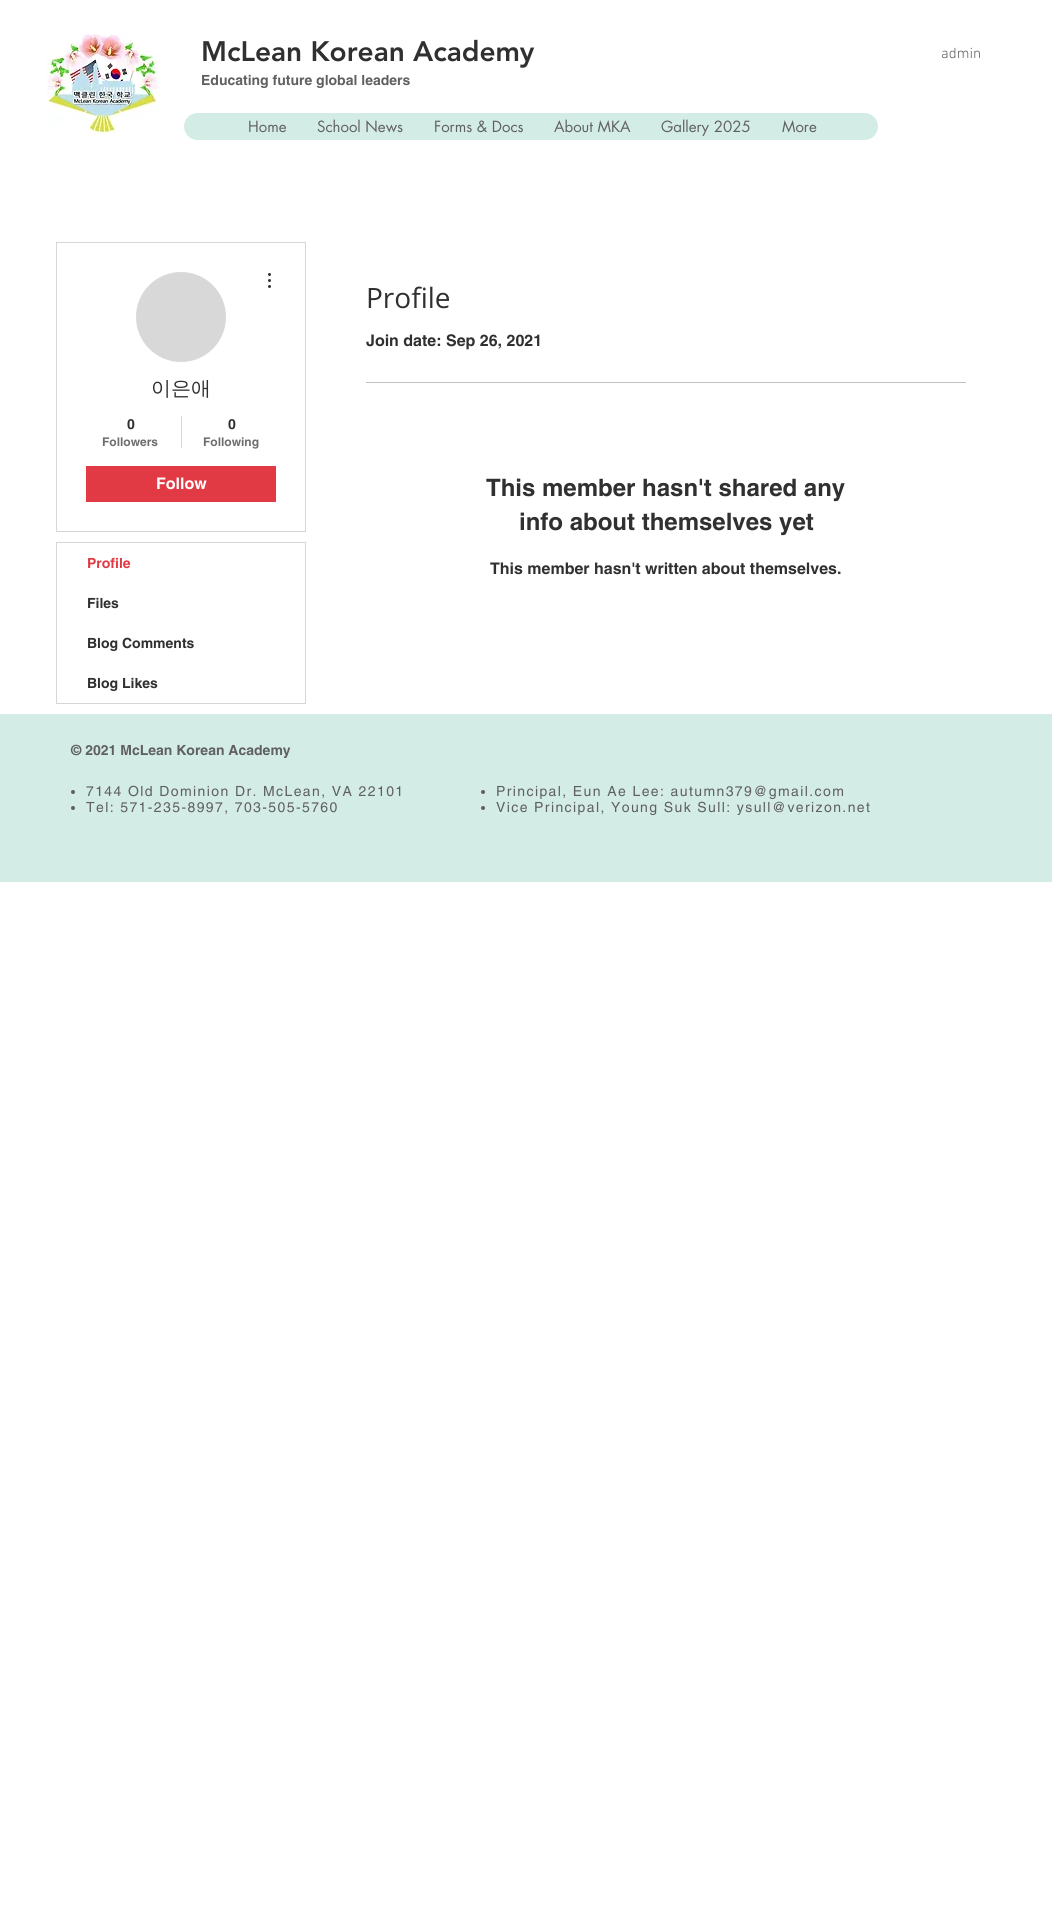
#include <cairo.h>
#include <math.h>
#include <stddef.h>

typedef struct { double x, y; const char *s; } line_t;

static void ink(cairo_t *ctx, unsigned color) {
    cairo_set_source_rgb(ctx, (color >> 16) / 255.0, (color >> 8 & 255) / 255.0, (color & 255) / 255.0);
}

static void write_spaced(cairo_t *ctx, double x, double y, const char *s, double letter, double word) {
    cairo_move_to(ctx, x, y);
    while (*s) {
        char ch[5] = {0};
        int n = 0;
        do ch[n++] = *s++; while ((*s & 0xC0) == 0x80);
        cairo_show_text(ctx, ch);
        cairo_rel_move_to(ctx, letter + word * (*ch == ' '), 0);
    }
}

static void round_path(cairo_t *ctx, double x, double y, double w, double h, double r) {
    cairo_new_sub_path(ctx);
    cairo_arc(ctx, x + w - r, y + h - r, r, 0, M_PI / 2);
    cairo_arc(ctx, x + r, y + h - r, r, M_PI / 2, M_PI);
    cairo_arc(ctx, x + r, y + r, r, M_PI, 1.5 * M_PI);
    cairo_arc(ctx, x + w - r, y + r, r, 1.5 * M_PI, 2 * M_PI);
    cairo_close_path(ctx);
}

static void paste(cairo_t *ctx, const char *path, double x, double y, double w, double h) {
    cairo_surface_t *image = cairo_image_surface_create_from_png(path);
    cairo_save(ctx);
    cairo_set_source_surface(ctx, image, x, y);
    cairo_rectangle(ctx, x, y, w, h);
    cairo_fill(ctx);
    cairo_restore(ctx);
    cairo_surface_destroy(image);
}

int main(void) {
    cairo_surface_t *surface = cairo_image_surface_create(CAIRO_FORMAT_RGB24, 1052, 1932);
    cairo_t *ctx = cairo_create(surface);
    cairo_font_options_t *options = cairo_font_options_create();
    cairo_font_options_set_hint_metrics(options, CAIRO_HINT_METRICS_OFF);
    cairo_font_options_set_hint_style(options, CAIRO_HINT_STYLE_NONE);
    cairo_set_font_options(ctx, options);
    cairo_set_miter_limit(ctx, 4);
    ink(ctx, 0xFFFFFF);
    cairo_paint(ctx);
    paste(ctx, "media/1.png", 45, 34, 115, 101);
    cairo_select_font_face(ctx, "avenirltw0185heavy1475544 Black", CAIRO_FONT_SLANT_NORMAL, CAIRO_FONT_WEIGHT_NORMAL);
    cairo_set_font_size(ctx, 28);
    ink(ctx, 0x303030);
    cairo_move_to(ctx, 201, 61);
    cairo_show_text(ctx, "McLean Korean Academy");
    cairo_select_font_face(ctx, "helvetica", CAIRO_FONT_SLANT_NORMAL, CAIRO_FONT_WEIGHT_BOLD);
    cairo_set_font_size(ctx, 14);
    ink(ctx, 0x606060);
    cairo_move_to(ctx, 201, 85);
    cairo_show_text(ctx, "Educating future global leaders");
    cairo_select_font_face(ctx, "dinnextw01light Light", CAIRO_FONT_SLANT_NORMAL, CAIRO_FONT_WEIGHT_NORMAL);
    cairo_set_font_size(ctx, 15);
    cairo_move_to(ctx, 941, 58);
    cairo_show_text(ctx, "admin");
    ink(ctx, 0xD4ECE6);
    round_path(ctx, 184, 113, 694, 27, 13.5);
    cairo_fill(ctx);
    cairo_select_font_face(ctx, "futura", CAIRO_FONT_SLANT_NORMAL, CAIRO_FONT_WEIGHT_NORMAL);
    ink(ctx, 0x606060);
    {
        static const line_t items[] = {
            {248, 132, "Home"},
            {317, 132, "School News"},
            {434, 132, "Forms & Docs"},
            {554, 132, "About MKA"},
            {661, 132, "Gallery 2025"},
            {782, 132, "More"},
        };
        for (size_t i = 0; i < sizeof items / sizeof *items; i++) {
            cairo_move_to(ctx, items[i].x, items[i].y);
            cairo_show_text(ctx, items[i].s);
        }
    }
    cairo_rectangle(ctx, 56.5, 242.5, 249, 289);
    ink(ctx, 0xD6D6D6);
    cairo_set_line_width(ctx, 1);
    cairo_stroke(ctx);
    ink(ctx, 0xD8D8D8);
    cairo_arc(ctx, 181, 317, 45, 0, 2 * M_PI);
    cairo_fill(ctx);
    paste(ctx, "media/2.png", 268, 273, 3, 15);
    cairo_select_font_face(ctx, "WenQuanYi Zen Hei Medium", CAIRO_FONT_SLANT_NORMAL, CAIRO_FONT_WEIGHT_NORMAL);
    cairo_set_font_size(ctx, 20);
    ink(ctx, 0x303030);
    cairo_move_to(ctx, 151, 395);
    cairo_show_text(ctx, "이은애");
    cairo_select_font_face(ctx, "helvetica", CAIRO_FONT_SLANT_NORMAL, CAIRO_FONT_WEIGHT_BOLD);
    cairo_set_font_size(ctx, 14);
    cairo_move_to(ctx, 127, 429);
    cairo_show_text(ctx, "0");
    cairo_set_font_size(ctx, 12);
    ink(ctx, 0x6E6E6E);
    cairo_move_to(ctx, 102, 446);
    cairo_show_text(ctx, "Followers");
    ink(ctx, 0xD6D6D6);
    cairo_rectangle(ctx, 181, 416, 1, 32);
    cairo_fill(ctx);
    cairo_set_font_size(ctx, 14);
    ink(ctx, 0x303030);
    cairo_move_to(ctx, 228, 429);
    cairo_show_text(ctx, "0");
    cairo_set_font_size(ctx, 12);
    ink(ctx, 0x6E6E6E);
    cairo_move_to(ctx, 203, 446);
    cairo_show_text(ctx, "Following");
    ink(ctx, 0xE13A44);
    cairo_rectangle(ctx, 86, 466, 190, 36);
    cairo_fill(ctx);
    cairo_set_font_size(ctx, 16);
    ink(ctx, 0xFFFFFF);
    cairo_move_to(ctx, 156, 489);
    cairo_show_text(ctx, "Follow");
    cairo_rectangle(ctx, 56.5, 542.5, 249, 161);
    ink(ctx, 0xD6D6D6);
    cairo_stroke(ctx);
    cairo_set_font_size(ctx, 14);
    ink(ctx, 0xE13A44);
    cairo_move_to(ctx, 87, 568);
    cairo_show_text(ctx, "Profile");
    ink(ctx, 0x303030);
    {
        static const line_t items[] = {
            {87, 608, "Files"},
            {87, 648, "Blog Comments"},
            {87, 688, "Blog Likes"},
        };
        for (size_t i = 0; i < sizeof items / sizeof *items; i++) {
            cairo_move_to(ctx, items[i].x, items[i].y);
            cairo_show_text(ctx, items[i].s);
        }
    }
    cairo_select_font_face(ctx, "Open Sans", CAIRO_FONT_SLANT_NORMAL, CAIRO_FONT_WEIGHT_NORMAL);
    cairo_set_font_size(ctx, 28);
    cairo_move_to(ctx, 366, 308);
    cairo_show_text(ctx, "Profile");
    cairo_select_font_face(ctx, "helvetica", CAIRO_FONT_SLANT_NORMAL, CAIRO_FONT_WEIGHT_BOLD);
    cairo_set_font_size(ctx, 16);
    cairo_move_to(ctx, 366, 346);
    cairo_show_text(ctx, "Join date: Sep 26, 2021");
    ink(ctx, 0xC1C1C1);
    cairo_rectangle(ctx, 366, 382, 600, 1);
    cairo_fill(ctx);
    cairo_set_font_size(ctx, 24);
    ink(ctx, 0x303030);
    cairo_move_to(ctx, 486, 496);
    cairo_show_text(ctx, "This member hasn't shared any");
    cairo_move_to(ctx, 519, 530);
    cairo_show_text(ctx, "info about themselves yet");
    cairo_set_font_size(ctx, 16);
    cairo_move_to(ctx, 490, 574);
    cairo_show_text(ctx, "This member hasn't written about themselves.");
    ink(ctx, 0xD4ECE6);
    cairo_rectangle(ctx, 0, 714, 1052, 168);
    cairo_fill(ctx);
    cairo_set_font_size(ctx, 14);
    ink(ctx, 0x606060);
    cairo_move_to(ctx, 71, 755);
    cairo_show_text(ctx, "© 2021 McLean Korean Academy");
    cairo_new_path(ctx);
    cairo_arc(ctx, 73, 792, 2, 0, 2 * M_PI);
    cairo_fill(ctx);
    cairo_select_font_face(ctx, "helvetica", CAIRO_FONT_SLANT_NORMAL, CAIRO_FONT_WEIGHT_NORMAL);
    write_spaced(ctx, 86, 796, "7144 Old Dominion Dr. McLean, VA 22101", 1.4, 0);
    cairo_new_path(ctx);
    cairo_arc(ctx, 73, 808, 2, 0, 2 * M_PI);
    cairo_fill(ctx);
    write_spaced(ctx, 86, 812, "Tel: 571-235-8997, 703-505-5760", 1.4, 0);
    cairo_new_path(ctx);
    cairo_arc(ctx, 483, 792, 2, 0, 2 * M_PI);
    cairo_fill(ctx);
    write_spaced(ctx, 496, 796, "Principal, Eun Ae Lee: autumn379@gmail.com", 1.4, 0);
    cairo_new_path(ctx);
    cairo_arc(ctx, 483, 808, 2, 0, 2 * M_PI);
    cairo_fill(ctx);
    write_spaced(ctx, 496, 812, "Vice Principal, Young Suk Sull: ysull@verizon.net", 1.4, 0);
    cairo_surface_write_to_png(surface, "image.png");
    cairo_font_options_destroy(options);
    cairo_destroy(ctx);
    cairo_surface_destroy(surface);
    return 0;
}
